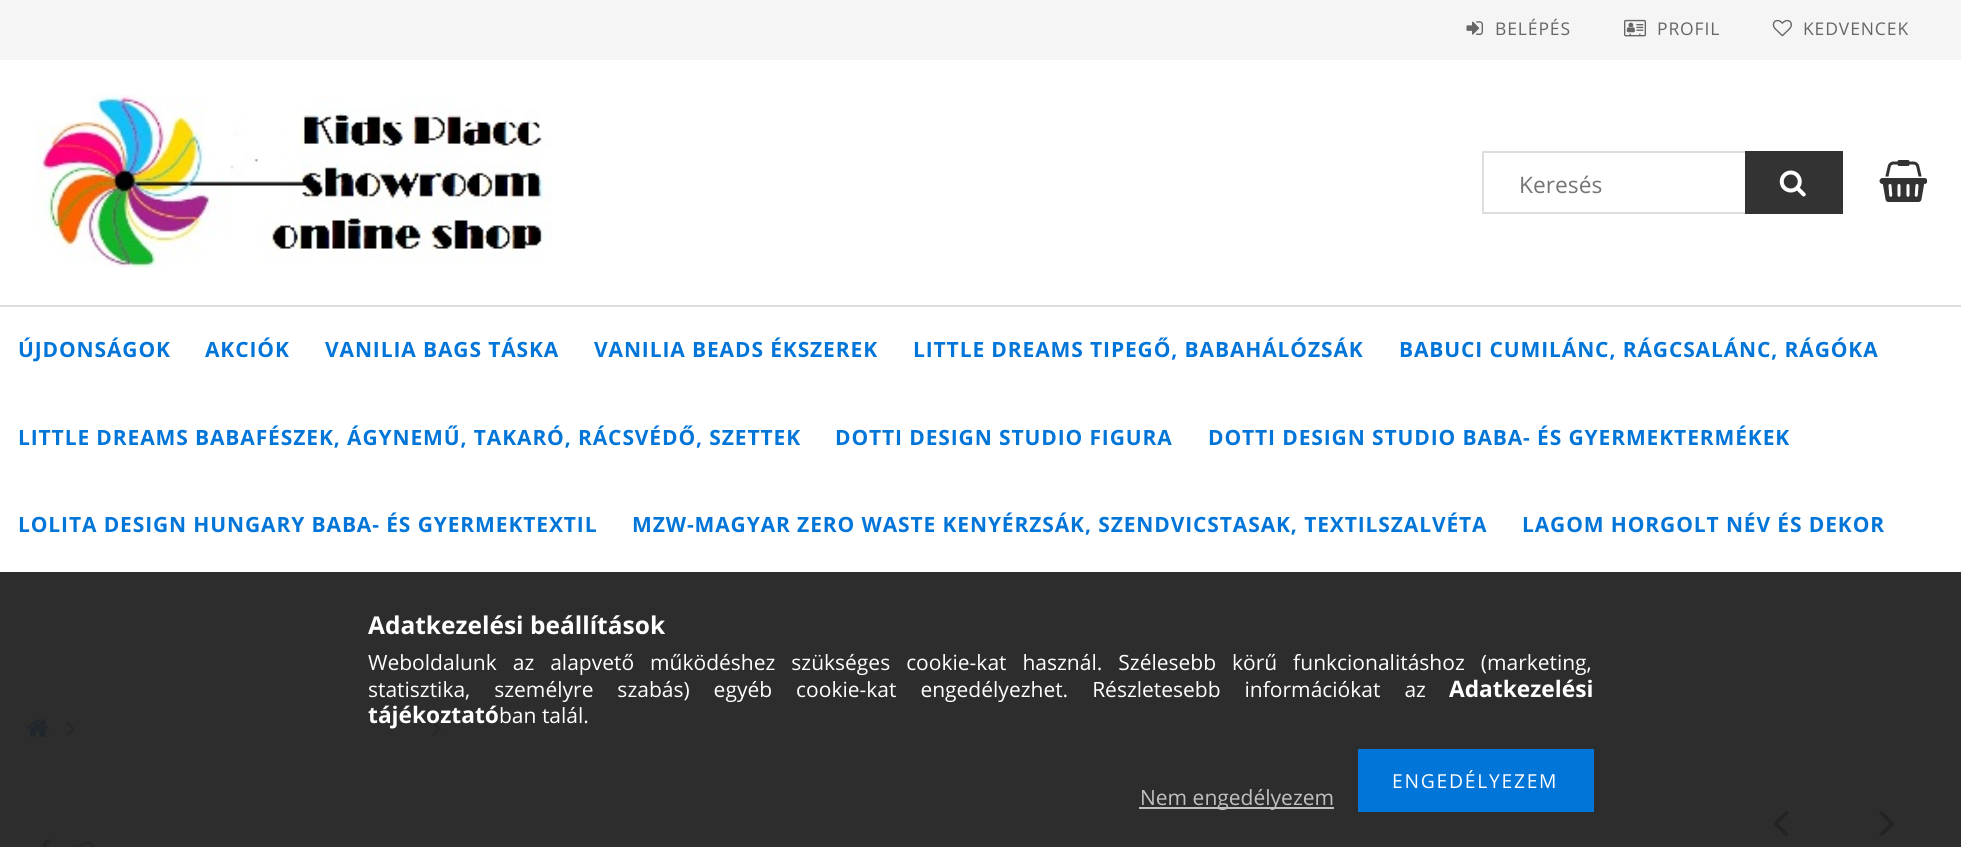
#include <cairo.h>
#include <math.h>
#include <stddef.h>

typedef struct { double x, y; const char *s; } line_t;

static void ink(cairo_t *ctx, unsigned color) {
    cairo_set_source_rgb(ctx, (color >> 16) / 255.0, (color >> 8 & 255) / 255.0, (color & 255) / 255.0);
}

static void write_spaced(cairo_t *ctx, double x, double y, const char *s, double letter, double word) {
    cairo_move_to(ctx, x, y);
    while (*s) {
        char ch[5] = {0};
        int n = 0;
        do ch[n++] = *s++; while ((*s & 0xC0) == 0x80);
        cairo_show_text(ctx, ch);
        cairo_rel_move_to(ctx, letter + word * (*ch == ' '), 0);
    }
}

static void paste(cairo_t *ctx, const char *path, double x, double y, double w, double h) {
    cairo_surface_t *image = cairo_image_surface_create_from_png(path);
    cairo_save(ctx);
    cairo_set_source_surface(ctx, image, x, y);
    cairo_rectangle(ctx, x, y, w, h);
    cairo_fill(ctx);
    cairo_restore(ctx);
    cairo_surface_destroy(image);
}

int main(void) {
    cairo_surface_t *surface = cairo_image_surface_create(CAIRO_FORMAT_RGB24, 1961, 847);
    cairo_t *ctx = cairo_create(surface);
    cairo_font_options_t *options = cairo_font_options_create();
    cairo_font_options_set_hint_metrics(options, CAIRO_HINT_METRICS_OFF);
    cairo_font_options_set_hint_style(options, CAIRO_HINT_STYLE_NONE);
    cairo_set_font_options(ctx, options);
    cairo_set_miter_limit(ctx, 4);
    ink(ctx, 0xFFFFFF);
    cairo_paint(ctx);
    ink(ctx, 0x2D2D2D);
    cairo_rectangle(ctx, 0, 572, 1961, 275);
    cairo_fill(ctx);
    ink(ctx, 0xF5F5F5);
    cairo_rectangle(ctx, 0, 0, 1961, 60);
    cairo_fill(ctx);
    paste(ctx, "media/1.png", 1466, 21, 17, 14);
    cairo_select_font_face(ctx, "Open Sans", CAIRO_FONT_SLANT_NORMAL, CAIRO_FONT_WEIGHT_NORMAL);
    cairo_set_font_size(ctx, 17.5);
    ink(ctx, 0x666666);
    write_spaced(ctx, 1495, 35, "BELÉPÉS", 0.88, 0);
    paste(ctx, "media/2.png", 1624, 19, 22, 18);
    write_spaced(ctx, 1657, 35, "PROFIL", 0.88, 0);
    paste(ctx, "media/3.png", 1772, 19, 20, 18);
    write_spaced(ctx, 1803, 35, "KEDVENCEK", 0.88, 0);
    paste(ctx, "media/4.png", 35, 95, 518, 173);
    cairo_rectangle(ctx, 1483, 152, 359, 61);
    ink(ctx, 0xDDDDDD);
    cairo_stroke(ctx);
    cairo_set_font_size(ctx, 22.75);
    ink(ctx, 0x757575);
    cairo_move_to(ctx, 1519, 193);
    cairo_show_text(ctx, "Keresés");
    ink(ctx, 0x333333);
    cairo_rectangle(ctx, 1745, 151, 98, 63);
    cairo_fill(ctx);
    paste(ctx, "media/5.png", 1779, 170, 27, 27);
    paste(ctx, "media/6.png", 1879, 160, 48, 42);
    ink(ctx, 0xDDDDDD);
    cairo_rectangle(ctx, 0, 305, 1961, 2);
    cairo_fill(ctx);
    cairo_select_font_face(ctx, "Open Sans", CAIRO_FONT_SLANT_NORMAL, CAIRO_FONT_WEIGHT_BOLD);
    cairo_set_font_size(ctx, 21);
    ink(ctx, 0x0275D8);
    {
        static const line_t items[] = {
            {18, 357, "ÚJDONSÁGOK"},
            {205, 357, "AKCIÓK"},
            {325, 357, "VANILIA BAGS TÁSKA"},
            {594, 357, "VANILIA BEADS ÉKSZEREK"},
            {913, 357, "LITTLE DREAMS TIPEGŐ, BABAHÁLÓZSÁK"},
            {1399, 357, "BABUCI CUMILÁNC, RÁGCSALÁNC, RÁGÓKA"},
            {18, 445, "LITTLE DREAMS BABAFÉSZEK, ÁGYNEMŰ, TAKARÓ, RÁCSVÉDŐ, SZETTEK"},
            {835, 445, "DOTTI DESIGN STUDIO FIGURA"},
            {1208, 445, "DOTTI DESIGN STUDIO BABA- ÉS GYERMEKTERMÉKEK"},
            {18, 532, "LOLITA DESIGN HUNGARY BABA- ÉS GYERMEKTEXTIL"},
            {632, 532, "MZW-MAGYAR ZERO WASTE KENYÉRZSÁK, SZENDVICSTASAK, TEXTILSZALVÉTA"},
            {1522, 532, "LAGOM HORGOLT NÉV ÉS DEKOR"},
        };
        for (size_t i = 0; i < sizeof items / sizeof *items; i++) {
            write_spaced(ctx, items[i].x, items[i].y, items[i].s, 0.88, 0);
        }
    }
    paste(ctx, "media/7.png", 26, 719, 23, 18);
    paste(ctx, "media/8.png", 66, 722, 9, 14);
    paste(ctx, "media/9.png", 432, 722, 9, 14);
    paste(ctx, "media/10.png", 1773, 811, 16, 26);
    paste(ctx, "media/11.png", 1879, 811, 16, 26);
    paste(ctx, "media/12.png", 42, 839, 9, 8);
    paste(ctx, "media/13.png", 79, 841, 16, 6);
    cairo_set_font_size(ctx, 24.5);
    ink(ctx, 0xFFFFFF);
    cairo_move_to(ctx, 368, 634);
    cairo_show_text(ctx, "Adatkezelési beállítások");
    cairo_select_font_face(ctx, "Open Sans", CAIRO_FONT_SLANT_NORMAL, CAIRO_FONT_WEIGHT_NORMAL);
    cairo_set_font_size(ctx, 21);
    write_spaced(ctx, 368, 670, "Weboldalunk az alapvető működéshez szükséges cookie-kat használ. Szélesebb körű funkcionalitáshoz (marketing,", 0, 10.5);
    write_spaced(ctx, 368, 697, "statisztika, személyre szabás) egyéb cookie-kat engedélyezhet. Részletesebb információkat az", 0, 18.5);
    cairo_select_font_face(ctx, "Open Sans", CAIRO_FONT_SLANT_NORMAL, CAIRO_FONT_WEIGHT_BOLD);
    cairo_set_font_size(ctx, 22.75);
    cairo_move_to(ctx, 1449, 697);
    cairo_show_text(ctx, "Adatkezelési");
    cairo_move_to(ctx, 368, 723);
    cairo_show_text(ctx, "tájékoztató");
    cairo_select_font_face(ctx, "Open Sans", CAIRO_FONT_SLANT_NORMAL, CAIRO_FONT_WEIGHT_NORMAL);
    cairo_set_font_size(ctx, 21);
    cairo_move_to(ctx, 499, 723);
    cairo_show_text(ctx, "ban talál.");
    ink(ctx, 0x0275D8);
    cairo_rectangle(ctx, 1358, 749, 236, 63);
    cairo_fill(ctx);
    cairo_set_font_size(ctx, 19.25);
    ink(ctx, 0xFFFFFF);
    write_spaced(ctx, 1392, 788, "ENGEDÉLYEZEM", 1.75, 0);
    cairo_set_source_rgba(ctx, 1, 1, 1, 0.7);
    cairo_rectangle(ctx, 1139, 807, 195, 2);
    cairo_fill(ctx);
    cairo_set_font_size(ctx, 21);
    ink(ctx, 0xC0C0C0);
    cairo_move_to(ctx, 1140, 805);
    cairo_show_text(ctx, "Nem engedélyezem");
    cairo_surface_write_to_png(surface, "image.png");
    cairo_font_options_destroy(options);
    cairo_destroy(ctx);
    cairo_surface_destroy(surface);
    return 0;
}
